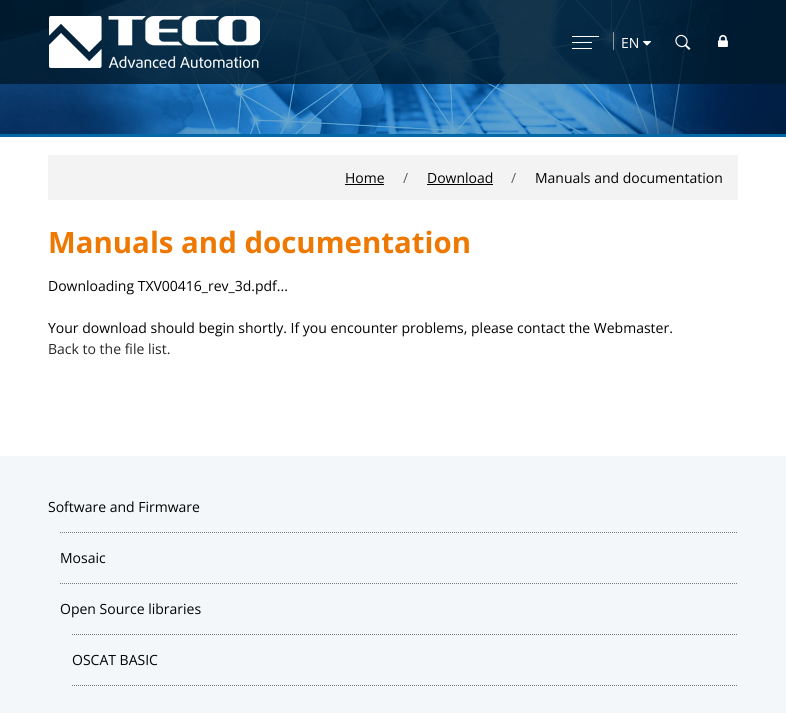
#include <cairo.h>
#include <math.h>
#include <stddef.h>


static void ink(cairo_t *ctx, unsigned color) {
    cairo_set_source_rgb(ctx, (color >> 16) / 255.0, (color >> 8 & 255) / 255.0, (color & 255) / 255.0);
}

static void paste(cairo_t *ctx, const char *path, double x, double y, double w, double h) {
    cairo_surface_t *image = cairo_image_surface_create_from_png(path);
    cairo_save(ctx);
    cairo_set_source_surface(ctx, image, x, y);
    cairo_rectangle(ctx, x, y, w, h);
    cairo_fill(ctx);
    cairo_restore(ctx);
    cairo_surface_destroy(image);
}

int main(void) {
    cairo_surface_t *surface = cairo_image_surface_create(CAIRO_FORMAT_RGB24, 786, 713);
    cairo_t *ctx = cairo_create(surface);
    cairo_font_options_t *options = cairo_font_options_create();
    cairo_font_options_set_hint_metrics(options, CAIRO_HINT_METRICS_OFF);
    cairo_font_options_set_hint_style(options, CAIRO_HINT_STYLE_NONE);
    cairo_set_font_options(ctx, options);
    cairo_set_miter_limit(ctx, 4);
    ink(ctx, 0xFFFFFF);
    cairo_paint(ctx);
    paste(ctx, "media/4.png", 0, 0, 786, 134);
    cairo_set_source_rgba(ctx, 0, 0.102, 0.165, 0.8);
    cairo_rectangle(ctx, 0, 0, 786, 84);
    cairo_fill(ctx);
    paste(ctx, "media/1.png", 49, 16, 211, 52);
    ink(ctx, 0xFFFFFF);
    cairo_rectangle(ctx, 572, 36, 27, 1);
    cairo_fill(ctx);
    cairo_rectangle(ctx, 572, 42, 20, 1);
    cairo_fill(ctx);
    cairo_rectangle(ctx, 572, 48, 20, 1);
    cairo_fill(ctx);
    cairo_set_source_rgba(ctx, 1, 1, 1, 0.5);
    cairo_rectangle(ctx, 613, 32, 1, 18);
    cairo_fill(ctx);
    cairo_select_font_face(ctx, "Open Sans", CAIRO_FONT_SLANT_NORMAL, CAIRO_FONT_WEIGHT_NORMAL);
    cairo_set_font_size(ctx, 14);
    ink(ctx, 0xFFFFFF);
    cairo_move_to(ctx, 621, 48);
    cairo_show_text(ctx, "EN");
    paste(ctx, "media/2.png", 643, 41, 8, 5);
    cairo_new_path(ctx);
    cairo_move_to(ctx, 677.5, 37);
    cairo_curve_to(ctx, 682.5, 32, 690.5, 40, 685.5, 45);
    cairo_curve_to(ctx, 680.5, 50, 672.5, 42, 677.5, 37);
    cairo_close_path(ctx);
    cairo_set_line_width(ctx, 1.2);
    cairo_stroke(ctx);
    cairo_new_path(ctx);
    cairo_move_to(ctx, 684.5, 45.5);
    cairo_line_to(ctx, 686, 44.5);
    cairo_line_to(ctx, 690.5, 48.5);
    cairo_line_to(ctx, 689, 50);
    cairo_close_path(ctx);
    cairo_fill(ctx);
    paste(ctx, "media/3.png", 718, 34, 10, 13);
    ink(ctx, 0x0069A6);
    cairo_rectangle(ctx, 0, 134, 786, 3);
    cairo_fill(ctx);
    ink(ctx, 0xF3F3F3);
    cairo_rectangle(ctx, 48, 155, 690, 45);
    cairo_fill(ctx);
    ink(ctx, 0x010101);
    cairo_move_to(ctx, 345, 183);
    cairo_show_text(ctx, "Home");
    cairo_rectangle(ctx, 345, 184, 39, 1);
    cairo_fill(ctx);
    ink(ctx, 0x626262);
    cairo_move_to(ctx, 403, 183);
    cairo_show_text(ctx, "/");
    ink(ctx, 0x010101);
    cairo_move_to(ctx, 427, 183);
    cairo_show_text(ctx, "Download");
    cairo_rectangle(ctx, 427, 184, 66, 1);
    cairo_fill(ctx);
    ink(ctx, 0x626262);
    cairo_move_to(ctx, 511, 183);
    cairo_show_text(ctx, "/");
    ink(ctx, 0x010101);
    cairo_move_to(ctx, 535, 183);
    cairo_show_text(ctx, "Manuals and documentation");
    cairo_select_font_face(ctx, "Open Sans", CAIRO_FONT_SLANT_NORMAL, CAIRO_FONT_WEIGHT_BOLD);
    cairo_set_font_size(ctx, 29.4);
    ink(ctx, 0xED7802);
    cairo_move_to(ctx, 48, 253);
    cairo_show_text(ctx, "Manuals and documentation");
    cairo_select_font_face(ctx, "Open Sans", CAIRO_FONT_SLANT_NORMAL, CAIRO_FONT_WEIGHT_NORMAL);
    cairo_set_font_size(ctx, 14);
    ink(ctx, 0x010101);
    cairo_move_to(ctx, 48, 291);
    cairo_show_text(ctx, "Downloading TXV00416_rev_3d.pdf...");
    cairo_move_to(ctx, 48, 333);
    cairo_show_text(ctx, "Your download should begin shortly. If you encounter problems, please contact the Webmaster.");
    ink(ctx, 0x272727);
    cairo_move_to(ctx, 48, 354);
    cairo_show_text(ctx, "Back to the file list.");
    ink(ctx, 0xF3F7FA);
    cairo_rectangle(ctx, 0, 456, 786, 257);
    cairo_fill(ctx);
    ink(ctx, 0x010101);
    cairo_move_to(ctx, 48, 512);
    cairo_show_text(ctx, "Software and Firmware");
    cairo_new_path(ctx);
    cairo_move_to(ctx, 60, 532.5);
    cairo_line_to(ctx, 738, 532.5);
    ink(ctx, 0x777777);
    cairo_set_line_width(ctx, 1);
    cairo_set_dash(ctx, (double[]){1, 1}, 2, 0);
    cairo_stroke(ctx);
    ink(ctx, 0x010101);
    cairo_move_to(ctx, 60, 563);
    cairo_show_text(ctx, "Mosaic");
    cairo_new_path(ctx);
    cairo_move_to(ctx, 60, 583.5);
    cairo_line_to(ctx, 738, 583.5);
    ink(ctx, 0x777777);
    cairo_stroke(ctx);
    ink(ctx, 0x010101);
    cairo_move_to(ctx, 60, 614);
    cairo_show_text(ctx, "Open Source libraries");
    cairo_new_path(ctx);
    cairo_move_to(ctx, 72, 634.5);
    cairo_line_to(ctx, 738, 634.5);
    ink(ctx, 0x777777);
    cairo_stroke(ctx);
    ink(ctx, 0x010101);
    cairo_move_to(ctx, 72, 665);
    cairo_show_text(ctx, "OSCAT BASIC");
    cairo_new_path(ctx);
    cairo_move_to(ctx, 72, 685.5);
    cairo_line_to(ctx, 738, 685.5);
    ink(ctx, 0x777777);
    cairo_stroke(ctx);
    cairo_surface_write_to_png(surface, "image.png");
    cairo_font_options_destroy(options);
    cairo_destroy(ctx);
    cairo_surface_destroy(surface);
    return 0;
}
